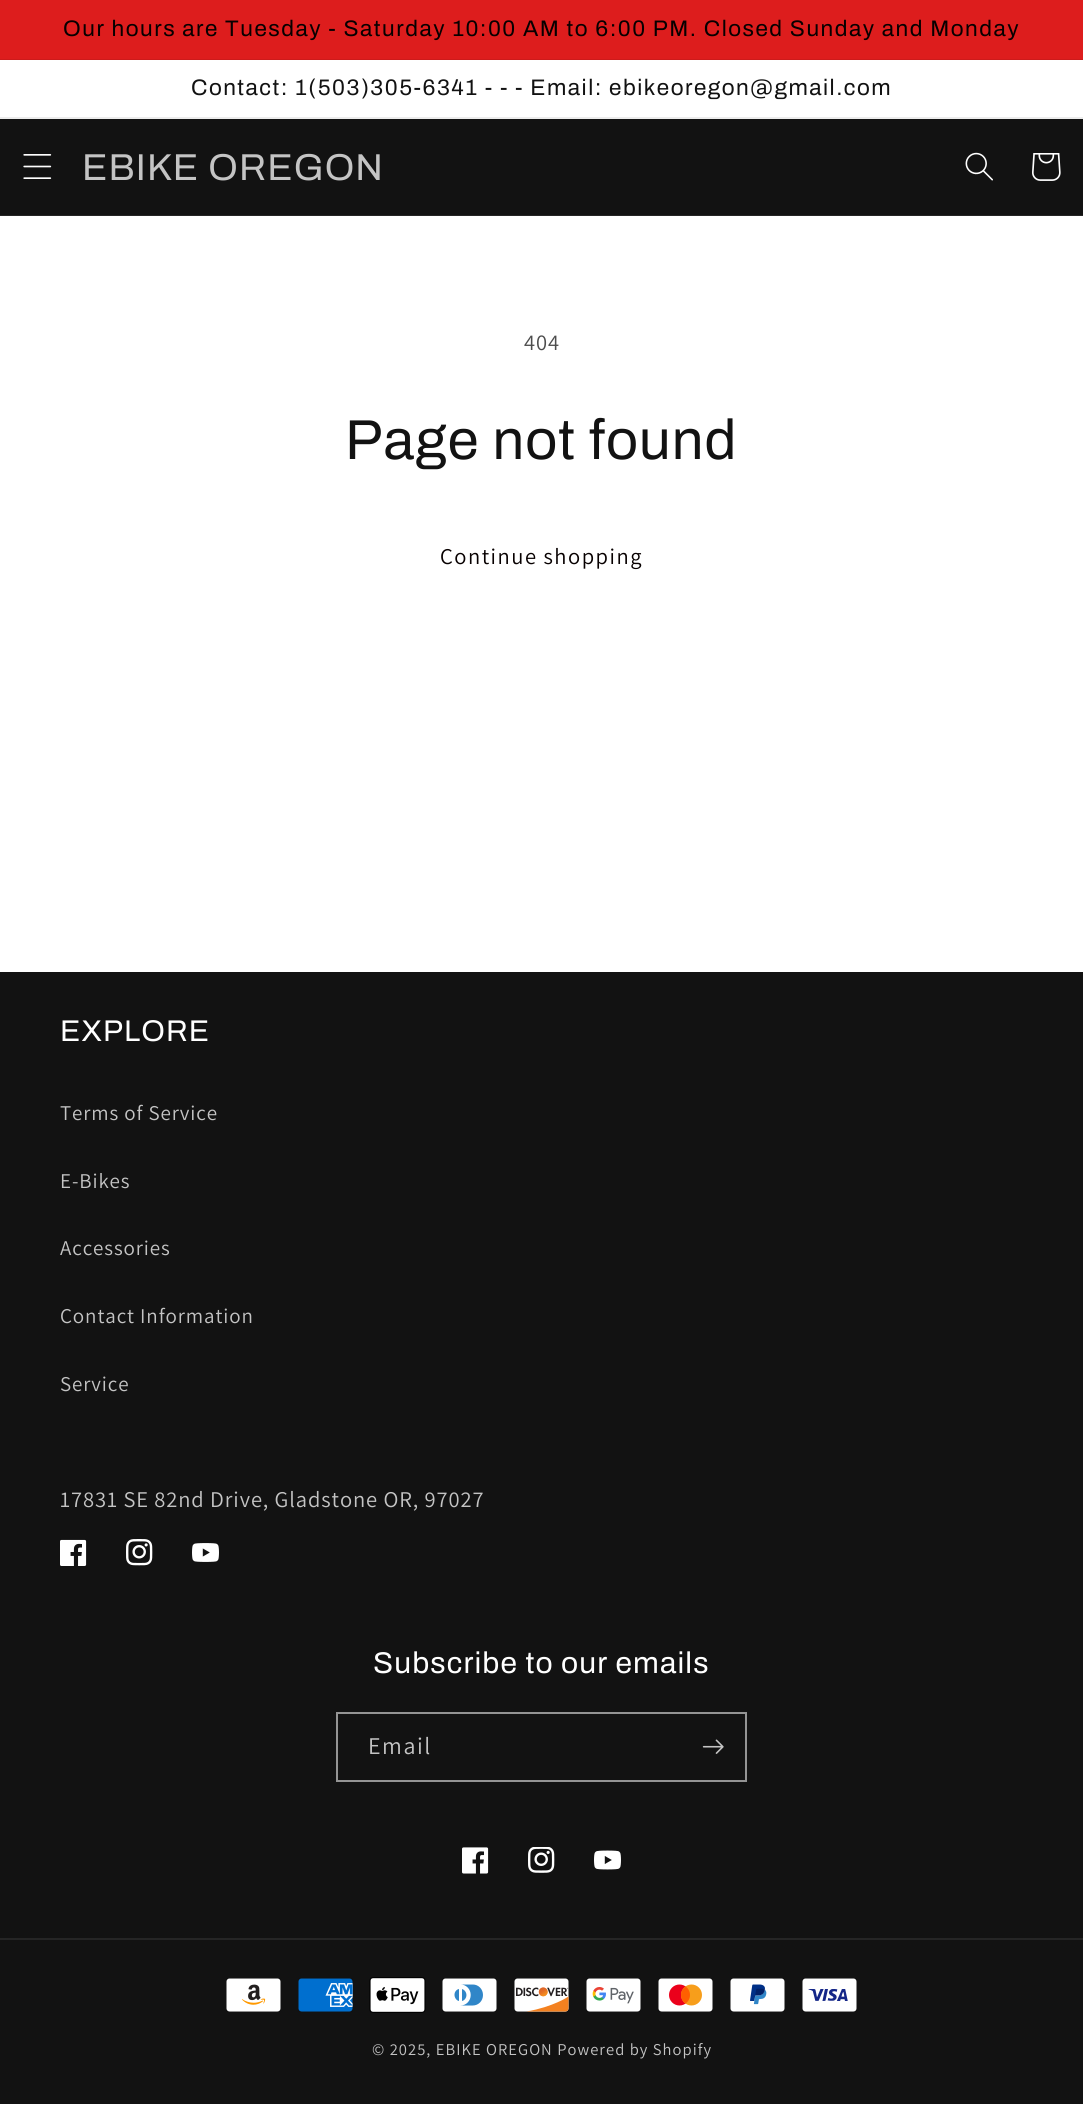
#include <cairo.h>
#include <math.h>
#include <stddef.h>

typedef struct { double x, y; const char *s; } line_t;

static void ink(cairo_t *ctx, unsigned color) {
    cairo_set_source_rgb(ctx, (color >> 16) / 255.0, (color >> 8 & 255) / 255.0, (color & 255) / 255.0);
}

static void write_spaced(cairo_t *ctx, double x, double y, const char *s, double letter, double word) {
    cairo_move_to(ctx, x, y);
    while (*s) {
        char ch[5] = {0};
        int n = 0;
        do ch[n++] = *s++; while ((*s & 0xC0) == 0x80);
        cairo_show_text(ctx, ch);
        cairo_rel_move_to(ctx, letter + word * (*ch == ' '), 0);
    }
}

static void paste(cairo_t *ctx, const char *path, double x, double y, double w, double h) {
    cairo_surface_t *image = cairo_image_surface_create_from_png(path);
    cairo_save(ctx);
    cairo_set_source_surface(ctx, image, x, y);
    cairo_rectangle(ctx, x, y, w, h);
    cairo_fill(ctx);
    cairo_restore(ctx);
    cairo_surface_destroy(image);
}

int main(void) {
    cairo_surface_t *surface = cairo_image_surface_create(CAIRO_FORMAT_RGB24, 1083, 2104);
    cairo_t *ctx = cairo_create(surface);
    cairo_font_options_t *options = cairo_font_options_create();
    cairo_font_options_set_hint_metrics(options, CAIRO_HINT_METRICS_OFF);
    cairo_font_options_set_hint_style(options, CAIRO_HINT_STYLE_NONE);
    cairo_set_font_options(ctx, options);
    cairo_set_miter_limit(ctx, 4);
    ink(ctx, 0xFFFFFF);
    cairo_paint(ctx);
    ink(ctx, 0xDD1D1D);
    cairo_rectangle(ctx, 0, 0, 1083, 59);
    cairo_fill(ctx);
    ink(ctx, 0xCC1B1B);
    cairo_rectangle(ctx, 0, 59, 1083, 1);
    cairo_fill(ctx);
    cairo_select_font_face(ctx, "Archivo", CAIRO_FONT_SLANT_NORMAL, CAIRO_FONT_WEIGHT_NORMAL);
    cairo_set_font_size(ctx, 22.5);
    ink(ctx, 0x070000);
    write_spaced(ctx, 63, 36, "Our hours are Tuesday - Saturday 10:00 AM to 6:00 PM. Closed Sunday and Monday", 1.5, 0);
    ink(ctx, 0xECECEC);
    cairo_rectangle(ctx, 0, 117, 1083, 2);
    cairo_fill(ctx);
    ink(ctx, 0x121212);
    write_spaced(ctx, 191, 95, "Contact: 1(503)305-6341 - - - Email: ebikeoregon@gmail.com", 1.5, 0);
    cairo_rectangle(ctx, 0, 119, 1083, 96);
    cairo_fill(ctx);
    ink(ctx, 0x252525);
    cairo_rectangle(ctx, 0, 215, 1083, 1);
    cairo_fill(ctx);
    paste(ctx, "media/1.png", 23, 154, 29, 25);
    cairo_set_font_size(ctx, 37.5);
    ink(ctx, 0xC4C4C4);
    write_spaced(ctx, 82, 180, "EBIKE OREGON", 1.1, 0);
    paste(ctx, "media/2.png", 965, 152, 28, 29);
    paste(ctx, "media/3.png", 1032, 153, 29, 28);
    cairo_select_font_face(ctx, "Assistant", CAIRO_FONT_SLANT_NORMAL, CAIRO_FONT_WEIGHT_NORMAL);
    cairo_set_font_size(ctx, 22.5);
    ink(ctx, 0x4D4D4D);
    write_spaced(ctx, 524, 350, "404", 0.9, 0);
    cairo_select_font_face(ctx, "Archivo", CAIRO_FONT_SLANT_NORMAL, CAIRO_FONT_WEIGHT_NORMAL);
    cairo_set_font_size(ctx, 56.25);
    ink(ctx, 0x121212);
    write_spaced(ctx, 345, 459, "Page not found", 1.1, 0);
    cairo_select_font_face(ctx, "Assistant", CAIRO_FONT_SLANT_NORMAL, CAIRO_FONT_WEIGHT_NORMAL);
    cairo_set_font_size(ctx, 22.5);
    ink(ctx, 0x070000);
    write_spaced(ctx, 440, 564, "Continue shopping", 1.5, 0);
    ink(ctx, 0x121212);
    cairo_rectangle(ctx, 0, 972, 1083, 1132);
    cairo_fill(ctx);
    cairo_select_font_face(ctx, "Archivo", CAIRO_FONT_SLANT_NORMAL, CAIRO_FONT_WEIGHT_NORMAL);
    cairo_set_font_size(ctx, 30);
    ink(ctx, 0xFFFFFF);
    write_spaced(ctx, 60, 1041, "EXPLORE", 1.1, 0);
    cairo_select_font_face(ctx, "Assistant", CAIRO_FONT_SLANT_NORMAL, CAIRO_FONT_WEIGHT_NORMAL);
    cairo_set_font_size(ctx, 21);
    ink(ctx, 0xC4C4C4);
    {
        static const line_t items[] = {
            {60, 1120, "Terms of Service"},
            {60, 1188, "E-Bikes"},
            {60, 1255, "Accessories"},
            {60, 1323, "Contact Information"},
            {60, 1391, "Service"},
        };
        for (size_t i = 0; i < sizeof items / sizeof *items; i++) {
            write_spaced(ctx, items[i].x, items[i].y, items[i].s, 0.9, 0);
        }
    }
    cairo_set_font_size(ctx, 22.5);
    write_spaced(ctx, 60, 1507, "17831 SE 82nd Drive, Gladstone OR, 97027", 0.9, 0);
    paste(ctx, "media/4.png", 60, 1539, 27, 27);
    paste(ctx, "media/5.png", 126, 1539, 27, 27);
    paste(ctx, "media/6.png", 192, 1543, 27, 19);
    cairo_select_font_face(ctx, "Archivo", CAIRO_FONT_SLANT_NORMAL, CAIRO_FONT_WEIGHT_NORMAL);
    cairo_set_font_size(ctx, 30);
    ink(ctx, 0xFFFFFF);
    write_spaced(ctx, 373, 1673, "Subscribe to our emails", 1.1, 0);
    cairo_rectangle(ctx, 337, 1713, 409, 68);
    ink(ctx, 0x949494);
    cairo_stroke(ctx);
    cairo_select_font_face(ctx, "Assistant", CAIRO_FONT_SLANT_NORMAL, CAIRO_FONT_WEIGHT_NORMAL);
    cairo_set_font_size(ctx, 24);
    ink(ctx, 0xC4C4C4);
    write_spaced(ctx, 368, 1754, "Email", 1.5, 0);
    paste(ctx, "media/7.png", 702, 1739, 22, 15);
    paste(ctx, "media/8.png", 462, 1847, 27, 27);
    paste(ctx, "media/9.png", 528, 1847, 27, 26);
    paste(ctx, "media/10.png", 594, 1850, 27, 20);
    ink(ctx, 0x252525);
    cairo_rectangle(ctx, 0, 1938, 1083, 2);
    cairo_fill(ctx);
    paste(ctx, "media/11.png", 226, 1978, 55, 34);
    paste(ctx, "media/12.png", 298, 1978, 55, 34);
    paste(ctx, "media/13.png", 369, 1977, 57, 36);
    paste(ctx, "media/14.png", 442, 1978, 55, 34);
    paste(ctx, "media/15.png", 514, 1978, 55, 34);
    paste(ctx, "media/16.png", 586, 1978, 55, 34);
    paste(ctx, "media/17.png", 658, 1978, 55, 34);
    paste(ctx, "media/18.png", 730, 1978, 55, 34);
    paste(ctx, "media/19.png", 802, 1978, 55, 34);
    cairo_set_font_size(ctx, 16.5);
    ink(ctx, 0xC4C4C4);
    write_spaced(ctx, 372, 2055, "© 2025, EBIKE OREGON Powered by Shopify", 1.05, 0);
    cairo_surface_write_to_png(surface, "image.png");
    cairo_font_options_destroy(options);
    cairo_destroy(ctx);
    cairo_surface_destroy(surface);
    return 0;
}
